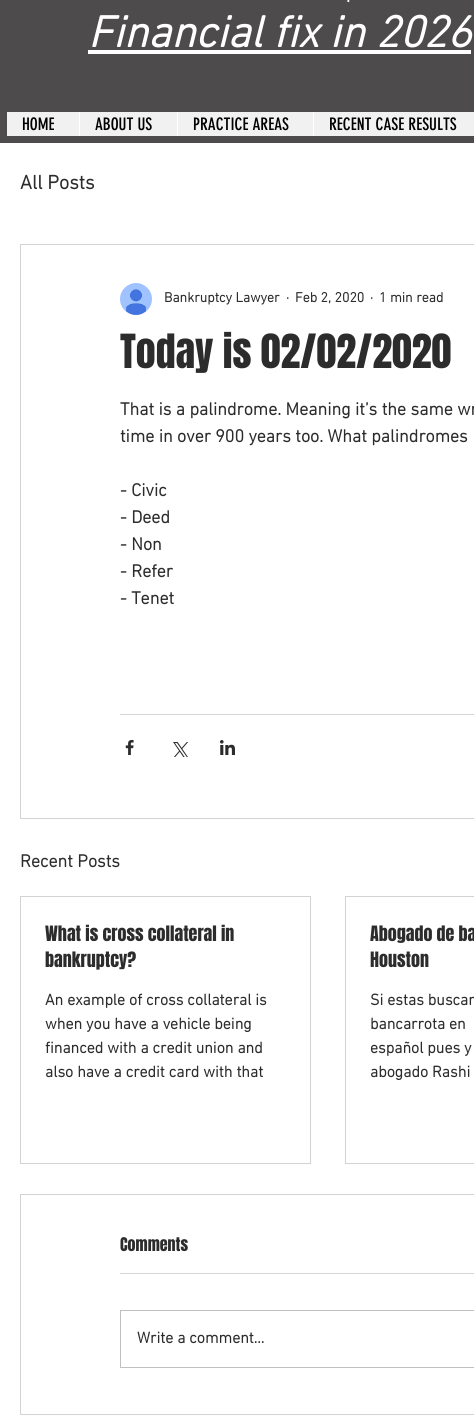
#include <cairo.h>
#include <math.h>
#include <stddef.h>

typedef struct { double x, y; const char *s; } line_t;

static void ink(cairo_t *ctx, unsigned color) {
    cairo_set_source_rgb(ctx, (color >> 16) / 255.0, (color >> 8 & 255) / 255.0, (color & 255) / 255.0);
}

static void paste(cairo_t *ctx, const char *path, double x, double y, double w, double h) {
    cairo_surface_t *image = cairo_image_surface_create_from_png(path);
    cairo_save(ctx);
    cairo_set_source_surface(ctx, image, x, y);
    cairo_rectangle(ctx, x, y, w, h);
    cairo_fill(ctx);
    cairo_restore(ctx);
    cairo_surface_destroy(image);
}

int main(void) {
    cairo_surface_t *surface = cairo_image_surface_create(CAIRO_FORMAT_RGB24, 474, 1420);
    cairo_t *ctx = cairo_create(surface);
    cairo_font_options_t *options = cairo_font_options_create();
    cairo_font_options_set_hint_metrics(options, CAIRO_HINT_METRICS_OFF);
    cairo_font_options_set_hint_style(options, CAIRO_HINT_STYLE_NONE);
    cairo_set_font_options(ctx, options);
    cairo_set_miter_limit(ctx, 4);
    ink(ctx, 0xFFFFFF);
    cairo_paint(ctx);
    ink(ctx, 0x4D4B4B);
    cairo_rectangle(ctx, 0, 0, 474, 143);
    cairo_fill(ctx);
    cairo_select_font_face(ctx, "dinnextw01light", CAIRO_FONT_SLANT_NORMAL, CAIRO_FONT_WEIGHT_BOLD);
    cairo_set_font_size(ctx, 19);
    ink(ctx, 0xFFFFFF);
    cairo_move_to(ctx, 346, 2);
    cairo_show_text(ctx, ".");
    cairo_select_font_face(ctx, "dinnextw01light", CAIRO_FONT_SLANT_ITALIC, CAIRO_FONT_WEIGHT_BOLD);
    cairo_set_font_size(ctx, 45);
    cairo_move_to(ctx, 88, 47);
    cairo_show_text(ctx, "Financial fix in 2026");
    cairo_rectangle(ctx, 88, 50, 383, 4);
    cairo_fill(ctx);
    ink(ctx, 0xF1F1F1);
    cairo_rectangle(ctx, 7, 112, 467, 24);
    cairo_fill(ctx);
    cairo_select_font_face(ctx, "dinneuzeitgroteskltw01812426", CAIRO_FONT_SLANT_NORMAL, CAIRO_FONT_WEIGHT_NORMAL);
    cairo_set_font_size(ctx, 17);
    ink(ctx, 0x000000);
    cairo_move_to(ctx, 22, 130);
    cairo_show_text(ctx, "HOME");
    ink(ctx, 0xFFFFFF);
    cairo_rectangle(ctx, 79, 112, 1, 24);
    cairo_fill(ctx);
    ink(ctx, 0x000000);
    cairo_move_to(ctx, 95, 130);
    cairo_show_text(ctx, "ABOUT US");
    ink(ctx, 0xFFFFFF);
    cairo_rectangle(ctx, 177, 112, 1, 24);
    cairo_fill(ctx);
    ink(ctx, 0x000000);
    cairo_move_to(ctx, 193, 130);
    cairo_show_text(ctx, "PRACTICE AREAS");
    ink(ctx, 0xFFFFFF);
    cairo_rectangle(ctx, 313, 112, 1, 24);
    cairo_fill(ctx);
    ink(ctx, 0x000000);
    cairo_move_to(ctx, 329, 130);
    cairo_show_text(ctx, "RECENT CASE RESULTS");
    cairo_select_font_face(ctx, "dinnextw01light", CAIRO_FONT_SLANT_NORMAL, CAIRO_FONT_WEIGHT_BOLD);
    cairo_set_font_size(ctx, 20);
    ink(ctx, 0x2C2C2C);
    cairo_move_to(ctx, 20, 189);
    cairo_show_text(ctx, "All Posts");
    cairo_rectangle(ctx, 20.5, 244.5, 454, 574);
    ink(ctx, 0xD5D2D2);
    cairo_set_line_width(ctx, 1);
    cairo_stroke(ctx);
    paste(ctx, "media/1.png", 120, 283, 32, 32);
    cairo_set_font_size(ctx, 14);
    ink(ctx, 0x2C2C2C);
    {
        static const line_t items[] = {
            {164, 302, "Bankruptcy Lawyer"},
            {286, 302, "·"},
            {295, 302, "Feb 2, 2020"},
            {370, 302, "·"},
            {379, 302, "1 min read"},
        };
        for (size_t i = 0; i < sizeof items / sizeof *items; i++) {
            cairo_move_to(ctx, items[i].x, items[i].y);
            cairo_show_text(ctx, items[i].s);
        }
    }
    cairo_select_font_face(ctx, "Anton", CAIRO_FONT_SLANT_NORMAL, CAIRO_FONT_WEIGHT_NORMAL);
    cairo_set_font_size(ctx, 40);
    cairo_move_to(ctx, 120, 368);
    cairo_show_text(ctx, "Today is 02/02/2020");
    cairo_select_font_face(ctx, "dinnextw01light", CAIRO_FONT_SLANT_NORMAL, CAIRO_FONT_WEIGHT_BOLD);
    cairo_set_font_size(ctx, 18);
    {
        static const line_t items[] = {
            {120, 415, "That is a palindrome. Meaning it’s the same wr"},
            {120, 442, "time in over 900 years too. What palindromes"},
            {120, 496, "- Civic"},
            {120, 523, "- Deed"},
            {120, 550, "- Non"},
            {120, 577, "- Refer"},
            {120, 604, "- Tenet"},
        };
        for (size_t i = 0; i < sizeof items / sizeof *items; i++) {
            cairo_move_to(ctx, items[i].x, items[i].y);
            cairo_show_text(ctx, items[i].s);
        }
    }
    ink(ctx, 0xD5D5D5);
    cairo_rectangle(ctx, 120, 714, 354, 1);
    cairo_fill(ctx);
    paste(ctx, "media/2.png", 125, 740, 9, 15);
    paste(ctx, "media/3.png", 173, 742, 15, 15);
    paste(ctx, "media/4.png", 220, 740, 15, 15);
    ink(ctx, 0x2C2C2C);
    cairo_move_to(ctx, 20, 867);
    cairo_show_text(ctx, "Recent Posts");
    cairo_rectangle(ctx, 20.5, 896.5, 290, 267);
    ink(ctx, 0xD5D2D2);
    cairo_stroke(ctx);
    cairo_select_font_face(ctx, "Anton", CAIRO_FONT_SLANT_NORMAL, CAIRO_FONT_WEIGHT_NORMAL);
    ink(ctx, 0x2C2C2C);
    cairo_move_to(ctx, 45, 941);
    cairo_show_text(ctx, "What is cross collateral in");
    cairo_move_to(ctx, 45, 967);
    cairo_show_text(ctx, "bankruptcy?");
    cairo_select_font_face(ctx, "dinnextw01light", CAIRO_FONT_SLANT_NORMAL, CAIRO_FONT_WEIGHT_BOLD);
    cairo_set_font_size(ctx, 16);
    {
        static const line_t items[] = {
            {45, 1005, "An example of cross collateral is"},
            {45, 1029, "when you have a vehicle being"},
            {45, 1053, "financed with a credit union and"},
            {45, 1077, "also have a credit card with that"},
        };
        for (size_t i = 0; i < sizeof items / sizeof *items; i++) {
            cairo_move_to(ctx, items[i].x, items[i].y);
            cairo_show_text(ctx, items[i].s);
        }
    }
    cairo_rectangle(ctx, 345.5, 896.5, 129, 267);
    ink(ctx, 0xD5D2D2);
    cairo_stroke(ctx);
    cairo_select_font_face(ctx, "Anton", CAIRO_FONT_SLANT_NORMAL, CAIRO_FONT_WEIGHT_NORMAL);
    cairo_set_font_size(ctx, 18);
    ink(ctx, 0x2C2C2C);
    cairo_move_to(ctx, 370, 941);
    cairo_show_text(ctx, "Abogado de ba");
    cairo_move_to(ctx, 370, 967);
    cairo_show_text(ctx, "Houston");
    cairo_select_font_face(ctx, "dinnextw01light", CAIRO_FONT_SLANT_NORMAL, CAIRO_FONT_WEIGHT_BOLD);
    cairo_set_font_size(ctx, 16);
    {
        static const line_t items[] = {
            {370, 1005, "Si estas buscan"},
            {370, 1029, "bancarrota en"},
            {370, 1053, "español pues y"},
            {370, 1077, "abogado Rashi"},
        };
        for (size_t i = 0; i < sizeof items / sizeof *items; i++) {
            cairo_move_to(ctx, items[i].x, items[i].y);
            cairo_show_text(ctx, items[i].s);
        }
    }
    cairo_rectangle(ctx, 20.5, 1194.5, 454, 220);
    ink(ctx, 0xD5D2D2);
    cairo_stroke(ctx);
    cairo_select_font_face(ctx, "Anton", CAIRO_FONT_SLANT_NORMAL, CAIRO_FONT_WEIGHT_NORMAL);
    ink(ctx, 0x2C2C2C);
    cairo_move_to(ctx, 120, 1251);
    cairo_show_text(ctx, "Comments");
    ink(ctx, 0xD5D5D5);
    cairo_rectangle(ctx, 120, 1273, 354, 1);
    cairo_fill(ctx);
    cairo_rectangle(ctx, 120.5, 1310.5, 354, 57);
    ink(ctx, 0xC0C0C0);
    cairo_stroke(ctx);
    cairo_select_font_face(ctx, "dinnextw01light", CAIRO_FONT_SLANT_NORMAL, CAIRO_FONT_WEIGHT_BOLD);
    ink(ctx, 0x2C2C2C);
    cairo_move_to(ctx, 137, 1343);
    cairo_show_text(ctx, "Write a comment...");
    cairo_surface_write_to_png(surface, "image.png");
    cairo_font_options_destroy(options);
    cairo_destroy(ctx);
    cairo_surface_destroy(surface);
    return 0;
}
